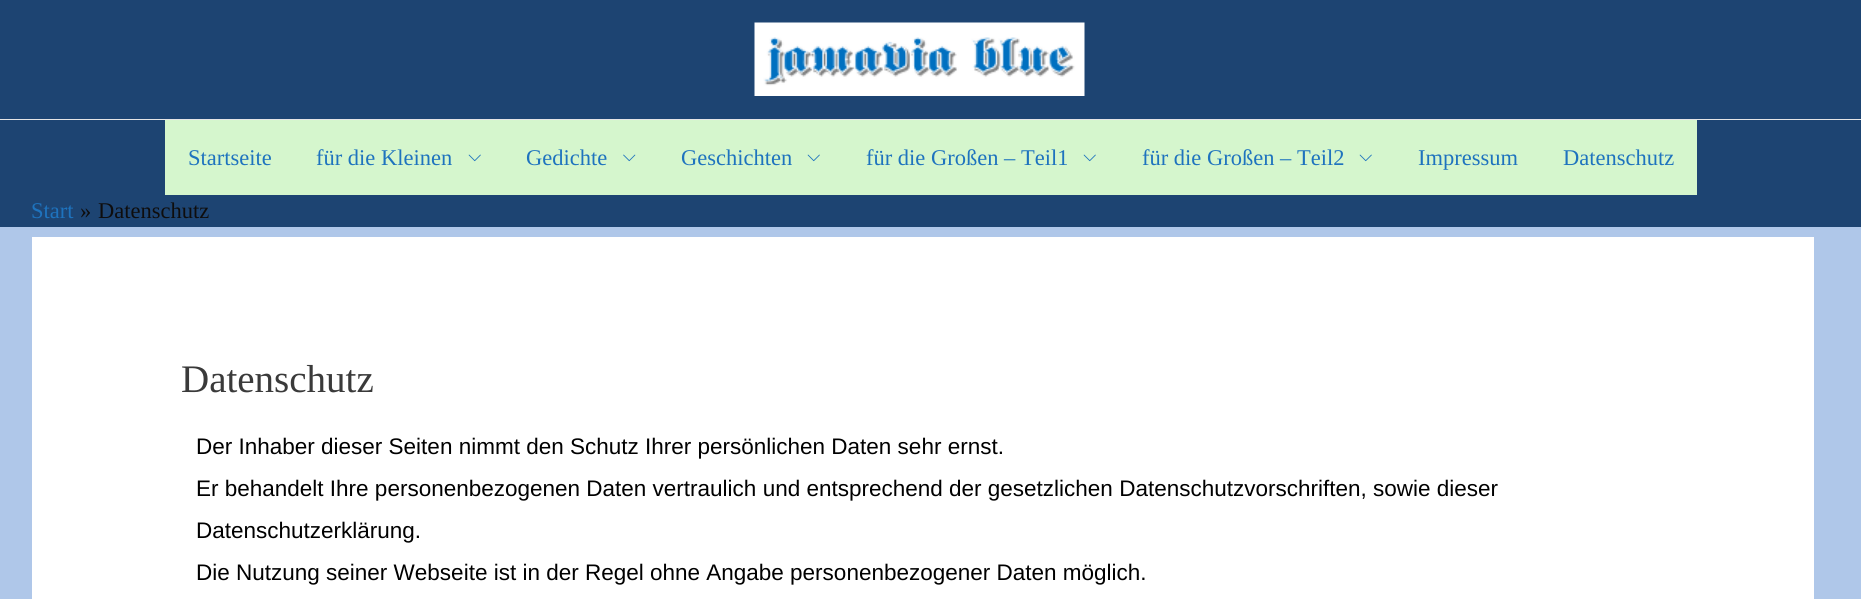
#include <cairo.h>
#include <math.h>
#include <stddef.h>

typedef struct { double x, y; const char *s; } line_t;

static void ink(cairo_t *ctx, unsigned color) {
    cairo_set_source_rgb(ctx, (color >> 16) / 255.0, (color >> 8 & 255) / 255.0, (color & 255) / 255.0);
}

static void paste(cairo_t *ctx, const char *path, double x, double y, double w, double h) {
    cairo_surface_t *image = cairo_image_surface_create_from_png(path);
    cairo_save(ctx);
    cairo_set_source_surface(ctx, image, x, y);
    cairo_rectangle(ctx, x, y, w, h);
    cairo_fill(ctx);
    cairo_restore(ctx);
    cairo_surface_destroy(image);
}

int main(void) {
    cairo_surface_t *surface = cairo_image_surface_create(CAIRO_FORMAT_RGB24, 1861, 599);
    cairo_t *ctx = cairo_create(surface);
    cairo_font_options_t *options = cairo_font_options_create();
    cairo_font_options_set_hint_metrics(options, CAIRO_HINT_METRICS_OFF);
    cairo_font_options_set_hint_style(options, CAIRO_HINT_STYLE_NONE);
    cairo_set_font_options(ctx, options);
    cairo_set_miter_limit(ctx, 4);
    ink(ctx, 0xAFC7E9);
    cairo_paint(ctx);
    ink(ctx, 0x1D4472);
    cairo_rectangle(ctx, 0, 0, 1861, 119);
    cairo_fill(ctx);
    ink(ctx, 0xE5E5E5);
    cairo_rectangle(ctx, 0, 119, 1861, 1);
    cairo_fill(ctx);
    paste(ctx, "media/1.png", 754, 22, 331, 74);
    ink(ctx, 0x1D4472);
    cairo_rectangle(ctx, 0, 120, 1861, 107);
    cairo_fill(ctx);
    ink(ctx, 0xD5F6CD);
    cairo_rectangle(ctx, 165, 120, 1532, 75);
    cairo_fill(ctx);
    cairo_select_font_face(ctx, "Liberation Serif", CAIRO_FONT_SLANT_NORMAL, CAIRO_FONT_WEIGHT_NORMAL);
    cairo_set_font_size(ctx, 22.5);
    ink(ctx, 0x1E73BE);
    cairo_move_to(ctx, 188, 165);
    cairo_show_text(ctx, "Startseite");
    cairo_move_to(ctx, 316, 165);
    cairo_show_text(ctx, "für die Kleinen");
    paste(ctx, "media/2.png", 468, 154, 13, 8);
    cairo_move_to(ctx, 526, 165);
    cairo_show_text(ctx, "Gedichte");
    paste(ctx, "media/3.png", 623, 154, 13, 8);
    cairo_move_to(ctx, 681, 165);
    cairo_show_text(ctx, "Geschichten");
    paste(ctx, "media/2.png", 807, 154, 13, 8);
    cairo_move_to(ctx, 866, 165);
    cairo_show_text(ctx, "für die Großen – Teil1");
    paste(ctx, "media/2.png", 1083, 154, 13, 8);
    cairo_move_to(ctx, 1142, 165);
    cairo_show_text(ctx, "für die Großen – Teil2");
    paste(ctx, "media/2.png", 1359, 154, 13, 8);
    {
        static const line_t items[] = {
            {1418, 165, "Impressum"},
            {1563, 165, "Datenschutz"},
            {31, 218, "Start"},
        };
        for (size_t i = 0; i < sizeof items / sizeof *items; i++) {
            cairo_move_to(ctx, items[i].x, items[i].y);
            cairo_show_text(ctx, items[i].s);
        }
    }
    ink(ctx, 0x0E0D0D);
    cairo_move_to(ctx, 80, 218);
    cairo_show_text(ctx, "»");
    cairo_move_to(ctx, 98, 218);
    cairo_show_text(ctx, "Datenschutz");
    ink(ctx, 0xFFFFFF);
    cairo_rectangle(ctx, 32, 237, 1782, 362);
    cairo_fill(ctx);
    cairo_set_font_size(ctx, 39);
    ink(ctx, 0x3A3A3A);
    cairo_move_to(ctx, 181, 392);
    cairo_show_text(ctx, "Datenschutz");
    cairo_select_font_face(ctx, "Liberation Sans", CAIRO_FONT_SLANT_NORMAL, CAIRO_FONT_WEIGHT_NORMAL);
    cairo_set_font_size(ctx, 22.5);
    ink(ctx, 0x000000);
    {
        static const line_t items[] = {
            {196, 454, "Der Inhaber dieser Seiten nimmt den Schutz Ihrer persönlichen Daten sehr ernst."},
            {196, 496, "Er behandelt Ihre personenbezogenen Daten vertraulich und entsprechend der gesetzlichen Datenschutzvorschriften, sowie dieser"},
            {196, 538, "Datenschutzerklärung."},
            {196, 580, "Die Nutzung seiner Webseite ist in der Regel ohne Angabe personenbezogener Daten möglich."},
        };
        for (size_t i = 0; i < sizeof items / sizeof *items; i++) {
            cairo_move_to(ctx, items[i].x, items[i].y);
            cairo_show_text(ctx, items[i].s);
        }
    }
    cairo_surface_write_to_png(surface, "image.png");
    cairo_font_options_destroy(options);
    cairo_destroy(ctx);
    cairo_surface_destroy(surface);
    return 0;
}
